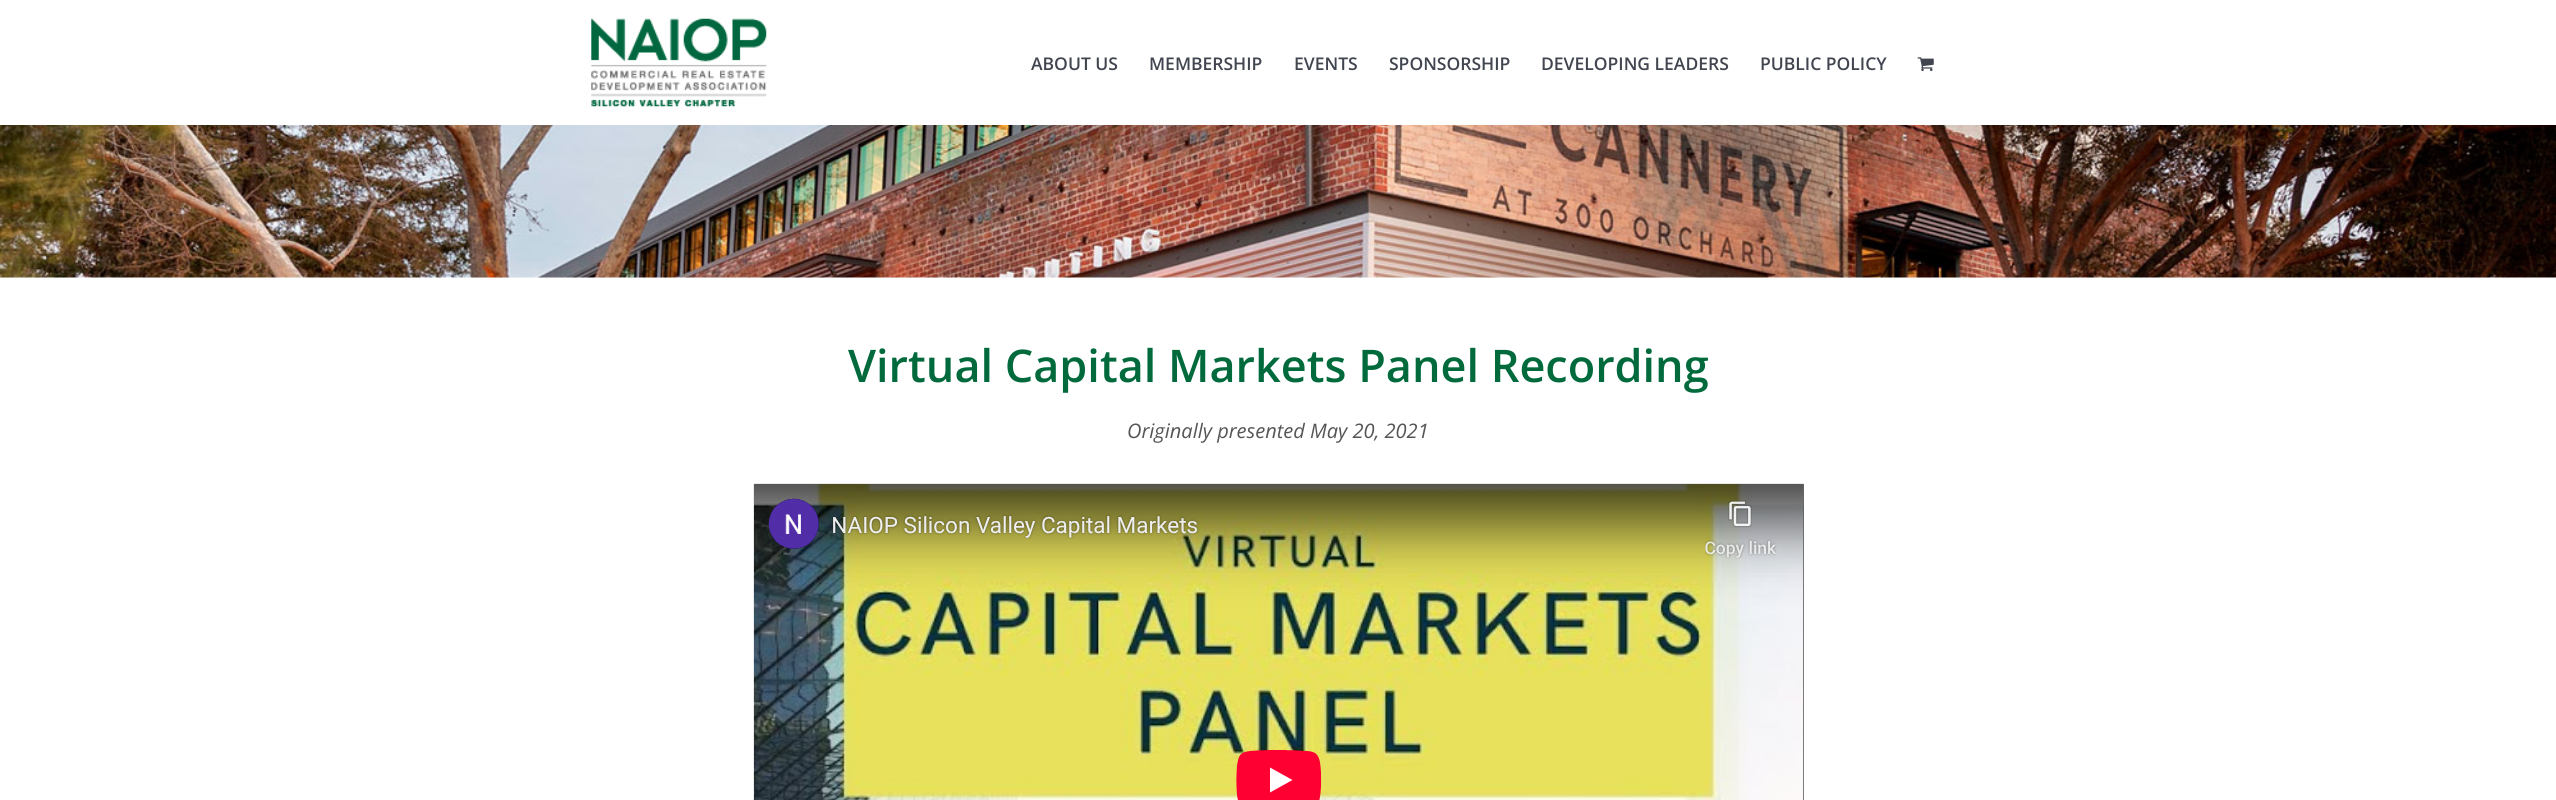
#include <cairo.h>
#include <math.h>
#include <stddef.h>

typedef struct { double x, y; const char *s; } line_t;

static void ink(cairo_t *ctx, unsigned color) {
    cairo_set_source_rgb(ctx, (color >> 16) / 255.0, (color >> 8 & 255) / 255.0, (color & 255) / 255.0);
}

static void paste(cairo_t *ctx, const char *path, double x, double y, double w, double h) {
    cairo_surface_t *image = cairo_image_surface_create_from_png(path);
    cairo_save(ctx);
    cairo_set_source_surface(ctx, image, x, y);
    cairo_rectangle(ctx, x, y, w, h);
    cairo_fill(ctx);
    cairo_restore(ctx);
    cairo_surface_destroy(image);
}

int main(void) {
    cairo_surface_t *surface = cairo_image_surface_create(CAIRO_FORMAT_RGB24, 2556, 800);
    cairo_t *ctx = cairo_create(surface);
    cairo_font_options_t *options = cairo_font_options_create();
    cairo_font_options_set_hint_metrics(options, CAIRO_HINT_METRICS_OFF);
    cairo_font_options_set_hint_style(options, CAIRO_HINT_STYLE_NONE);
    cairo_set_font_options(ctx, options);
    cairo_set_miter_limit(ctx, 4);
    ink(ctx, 0xFFFFFF);
    cairo_paint(ctx);
    paste(ctx, "media/1.png", 591, 18, 176, 89);
    cairo_select_font_face(ctx, "Open Sans SemiBold", CAIRO_FONT_SLANT_NORMAL, CAIRO_FONT_WEIGHT_NORMAL);
    cairo_set_font_size(ctx, 17.5);
    ink(ctx, 0x40454F);
    {
        static const line_t items[] = {
            {1031, 70, "ABOUT US"},
            {1149, 70, "MEMBERSHIP"},
            {1294, 70, "EVENTS"},
            {1389, 70, "SPONSORSHIP"},
            {1541, 70, "DEVELOPING LEADERS"},
            {1760, 70, "PUBLIC POLICY"},
        };
        for (size_t i = 0; i < sizeof items / sizeof *items; i++) {
            cairo_move_to(ctx, items[i].x, items[i].y);
            cairo_show_text(ctx, items[i].s);
        }
    }
    paste(ctx, "media/2.png", 1917, 57, 17, 15);
    paste(ctx, "media/3.png", 0, 125, 2556, 153);
    cairo_set_font_size(ctx, 45);
    ink(ctx, 0x006A3C);
    cairo_move_to(ctx, 848, 382);
    cairo_show_text(ctx, "Virtual Capital Markets Panel Recording");
    cairo_select_font_face(ctx, "Open Sans", CAIRO_FONT_SLANT_ITALIC, CAIRO_FONT_WEIGHT_NORMAL);
    cairo_set_font_size(ctx, 20);
    ink(ctx, 0x555555);
    cairo_move_to(ctx, 1127, 438);
    cairo_show_text(ctx, "Originally presented May 20, 2021");
    paste(ctx, "media/4.png", 753, 483, 1051, 317);
    cairo_surface_write_to_png(surface, "image.png");
    cairo_font_options_destroy(options);
    cairo_destroy(ctx);
    cairo_surface_destroy(surface);
    return 0;
}
